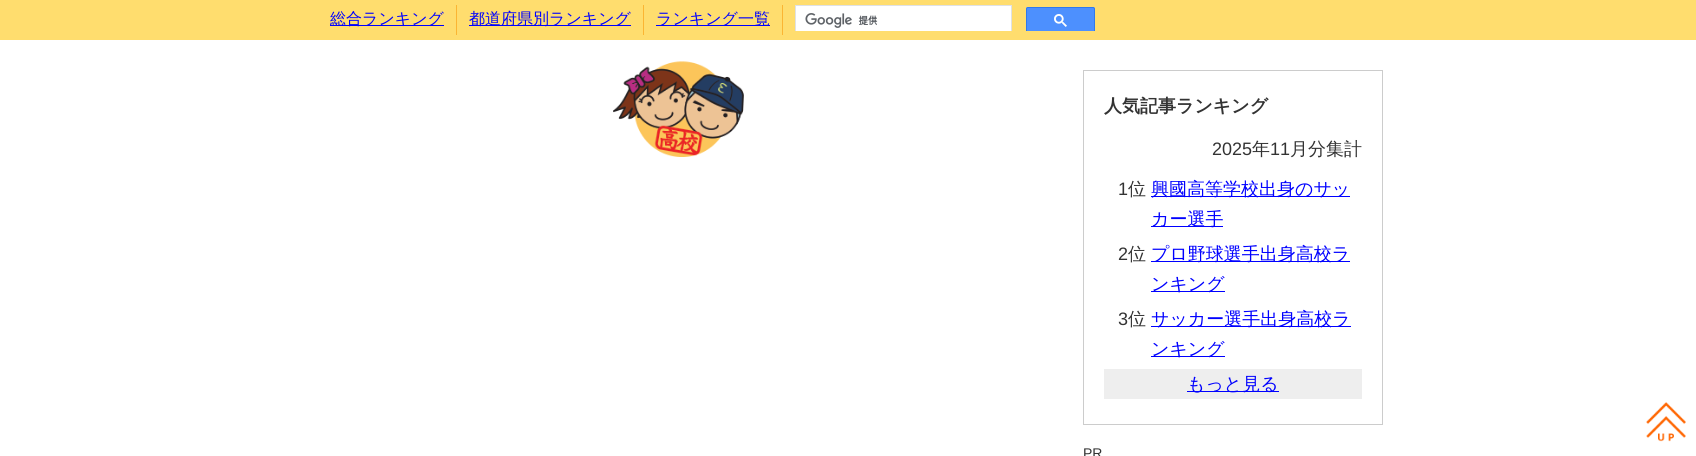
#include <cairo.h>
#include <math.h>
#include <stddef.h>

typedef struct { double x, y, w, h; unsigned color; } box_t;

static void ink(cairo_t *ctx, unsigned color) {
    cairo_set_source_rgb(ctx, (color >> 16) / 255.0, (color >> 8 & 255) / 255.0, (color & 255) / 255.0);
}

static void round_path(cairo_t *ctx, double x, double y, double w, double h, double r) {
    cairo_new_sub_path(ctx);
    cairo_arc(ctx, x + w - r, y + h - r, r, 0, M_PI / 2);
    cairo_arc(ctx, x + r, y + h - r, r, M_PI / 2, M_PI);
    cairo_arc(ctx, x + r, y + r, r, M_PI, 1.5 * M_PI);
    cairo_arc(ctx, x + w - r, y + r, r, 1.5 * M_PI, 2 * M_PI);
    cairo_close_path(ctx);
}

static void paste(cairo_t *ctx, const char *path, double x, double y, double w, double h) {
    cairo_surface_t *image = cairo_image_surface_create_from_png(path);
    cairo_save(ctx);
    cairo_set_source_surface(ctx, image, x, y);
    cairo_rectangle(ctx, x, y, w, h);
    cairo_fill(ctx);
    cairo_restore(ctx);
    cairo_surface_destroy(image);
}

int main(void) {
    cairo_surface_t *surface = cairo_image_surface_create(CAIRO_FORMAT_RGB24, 1696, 456);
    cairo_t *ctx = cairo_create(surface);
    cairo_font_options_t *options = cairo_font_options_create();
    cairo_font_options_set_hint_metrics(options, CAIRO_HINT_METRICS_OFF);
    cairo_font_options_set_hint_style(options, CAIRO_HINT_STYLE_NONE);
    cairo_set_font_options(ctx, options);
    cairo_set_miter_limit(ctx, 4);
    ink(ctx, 0xFFFFFF);
    cairo_paint(ctx);
    {
        static const box_t items[] = {
            {0, 0, 1696, 40, 0xFFDD6E},
            {456, 5, 1, 30, 0xFBB533},
            {330, 25, 114, 1, 0x0000FF},
        };
        for (size_t i = 0; i < sizeof items / sizeof *items; i++) {
            ink(ctx, items[i].color);
            cairo_rectangle(ctx, items[i].x, items[i].y, items[i].w, items[i].h);
            cairo_fill(ctx);
        }
    }
    cairo_select_font_face(ctx, "WenQuanYi Zen Hei Medium", CAIRO_FONT_SLANT_NORMAL, CAIRO_FONT_WEIGHT_NORMAL);
    cairo_set_font_size(ctx, 16);
    cairo_move_to(ctx, 330, 24);
    cairo_show_text(ctx, "総合ランキング");
    ink(ctx, 0xFBB533);
    cairo_rectangle(ctx, 643, 5, 1, 30);
    cairo_fill(ctx);
    ink(ctx, 0x0000FF);
    cairo_rectangle(ctx, 469, 25, 162, 1);
    cairo_fill(ctx);
    cairo_move_to(ctx, 469, 24);
    cairo_show_text(ctx, "都道府県別ランキング");
    ink(ctx, 0xFBB533);
    cairo_rectangle(ctx, 782, 5, 1, 30);
    cairo_fill(ctx);
    ink(ctx, 0x0000FF);
    cairo_rectangle(ctx, 656, 25, 114, 1);
    cairo_fill(ctx);
    cairo_move_to(ctx, 656, 24);
    cairo_show_text(ctx, "ランキング一覧");
    ink(ctx, 0xFFFFFF);
    cairo_rectangle(ctx, 796, 6, 215, 25);
    cairo_fill(ctx);
    cairo_save(ctx);
    cairo_rectangle(ctx, 783, 5, 324, 26);
    cairo_clip(ctx);
    cairo_rectangle(ctx, 795.5, 5.5, 216, 29);
    ink(ctx, 0xDFE1E5);
    cairo_set_line_width(ctx, 1);
    cairo_stroke(ctx);
    cairo_restore(ctx);
    paste(ctx, "media/1.png", 805, 13, 73, 15);
    ink(ctx, 0x4D90FE);
    cairo_new_path(ctx);
    cairo_move_to(ctx, 1028, 7);
    cairo_line_to(ctx, 1093, 7);
    cairo_curve_to(ctx, 1094, 7, 1095, 8, 1095, 9);
    cairo_line_to(ctx, 1095, 31);
    cairo_line_to(ctx, 1026, 31);
    cairo_line_to(ctx, 1026, 9);
    cairo_curve_to(ctx, 1026, 8, 1027, 7, 1028, 7);
    cairo_close_path(ctx);
    cairo_fill(ctx);
    cairo_save(ctx);
    cairo_rectangle(ctx, 783, 5, 324, 26);
    cairo_clip(ctx);
    round_path(ctx, 1026.5, 7.5, 68, 26, 1.5);
    ink(ctx, 0x3079ED);
    cairo_set_line_width(ctx, 1);
    cairo_stroke(ctx);
    cairo_restore(ctx);
    paste(ctx, "media/2.png", 1054, 14, 13, 13);
    paste(ctx, "media/3.png", 1646, 402, 40, 40);
    paste(ctx, "media/4.png", 613, 61, 131, 96);
    cairo_rectangle(ctx, 1083.5, 70.5, 299, 354);
    ink(ctx, 0xCCCCCC);
    cairo_set_line_width(ctx, 1);
    cairo_stroke(ctx);
    cairo_select_font_face(ctx, "WenQuanYi Zen Hei", CAIRO_FONT_SLANT_NORMAL, CAIRO_FONT_WEIGHT_BOLD);
    cairo_set_font_size(ctx, 18);
    ink(ctx, 0x333333);
    cairo_move_to(ctx, 1104, 112);
    cairo_show_text(ctx, "人気記事ランキング");
    cairo_select_font_face(ctx, "Liberation Sans", CAIRO_FONT_SLANT_NORMAL, CAIRO_FONT_WEIGHT_NORMAL);
    cairo_move_to(ctx, 1212, 155);
    cairo_show_text(ctx, "2025");
    cairo_select_font_face(ctx, "WenQuanYi Zen Hei Medium", CAIRO_FONT_SLANT_NORMAL, CAIRO_FONT_WEIGHT_NORMAL);
    cairo_move_to(ctx, 1252, 155);
    cairo_show_text(ctx, "年");
    cairo_select_font_face(ctx, "Liberation Sans", CAIRO_FONT_SLANT_NORMAL, CAIRO_FONT_WEIGHT_NORMAL);
    cairo_move_to(ctx, 1270, 155);
    cairo_show_text(ctx, "11");
    cairo_select_font_face(ctx, "WenQuanYi Zen Hei Medium", CAIRO_FONT_SLANT_NORMAL, CAIRO_FONT_WEIGHT_NORMAL);
    cairo_move_to(ctx, 1290, 155);
    cairo_show_text(ctx, "月分集計");
    cairo_select_font_face(ctx, "Liberation Sans", CAIRO_FONT_SLANT_NORMAL, CAIRO_FONT_WEIGHT_NORMAL);
    cairo_move_to(ctx, 1118, 195);
    cairo_show_text(ctx, "1");
    cairo_select_font_face(ctx, "WenQuanYi Zen Hei Medium", CAIRO_FONT_SLANT_NORMAL, CAIRO_FONT_WEIGHT_NORMAL);
    cairo_move_to(ctx, 1128, 195);
    cairo_show_text(ctx, "位");
    ink(ctx, 0x0000FF);
    cairo_rectangle(ctx, 1151, 196, 199, 1);
    cairo_fill(ctx);
    cairo_move_to(ctx, 1151, 195);
    cairo_show_text(ctx, "興國高等学校出身のサッ");
    cairo_rectangle(ctx, 1151, 226, 72, 1);
    cairo_fill(ctx);
    cairo_move_to(ctx, 1151, 225);
    cairo_show_text(ctx, "カー選手");
    cairo_select_font_face(ctx, "Liberation Sans", CAIRO_FONT_SLANT_NORMAL, CAIRO_FONT_WEIGHT_NORMAL);
    ink(ctx, 0x333333);
    cairo_move_to(ctx, 1118, 260);
    cairo_show_text(ctx, "2");
    cairo_select_font_face(ctx, "WenQuanYi Zen Hei Medium", CAIRO_FONT_SLANT_NORMAL, CAIRO_FONT_WEIGHT_NORMAL);
    cairo_move_to(ctx, 1128, 260);
    cairo_show_text(ctx, "位");
    ink(ctx, 0x0000FF);
    cairo_rectangle(ctx, 1151, 261, 199, 1);
    cairo_fill(ctx);
    cairo_move_to(ctx, 1151, 260);
    cairo_show_text(ctx, "プロ野球選手出身高校ラ");
    cairo_rectangle(ctx, 1151, 291, 74, 1);
    cairo_fill(ctx);
    cairo_move_to(ctx, 1151, 290);
    cairo_show_text(ctx, "ンキング");
    cairo_select_font_face(ctx, "Liberation Sans", CAIRO_FONT_SLANT_NORMAL, CAIRO_FONT_WEIGHT_NORMAL);
    ink(ctx, 0x333333);
    cairo_move_to(ctx, 1118, 325);
    cairo_show_text(ctx, "3");
    cairo_select_font_face(ctx, "WenQuanYi Zen Hei Medium", CAIRO_FONT_SLANT_NORMAL, CAIRO_FONT_WEIGHT_NORMAL);
    cairo_move_to(ctx, 1128, 325);
    cairo_show_text(ctx, "位");
    ink(ctx, 0x0000FF);
    cairo_rectangle(ctx, 1151, 326, 200, 1);
    cairo_fill(ctx);
    cairo_move_to(ctx, 1151, 325);
    cairo_show_text(ctx, "サッカー選手出身高校ラ");
    cairo_rectangle(ctx, 1151, 356, 74, 1);
    cairo_fill(ctx);
    cairo_move_to(ctx, 1151, 355);
    cairo_show_text(ctx, "ンキング");
    ink(ctx, 0xEEEEEE);
    cairo_rectangle(ctx, 1104, 369, 258, 30);
    cairo_fill(ctx);
    ink(ctx, 0x0000FF);
    cairo_rectangle(ctx, 1187, 391, 92, 1);
    cairo_fill(ctx);
    cairo_move_to(ctx, 1187, 390);
    cairo_show_text(ctx, "もっと見る");
    cairo_select_font_face(ctx, "Liberation Sans", CAIRO_FONT_SLANT_NORMAL, CAIRO_FONT_WEIGHT_NORMAL);
    cairo_set_font_size(ctx, 14);
    ink(ctx, 0x333333);
    cairo_move_to(ctx, 1083, 458);
    cairo_show_text(ctx, "PR");
    cairo_surface_write_to_png(surface, "image.png");
    cairo_font_options_destroy(options);
    cairo_destroy(ctx);
    cairo_surface_destroy(surface);
    return 0;
}
